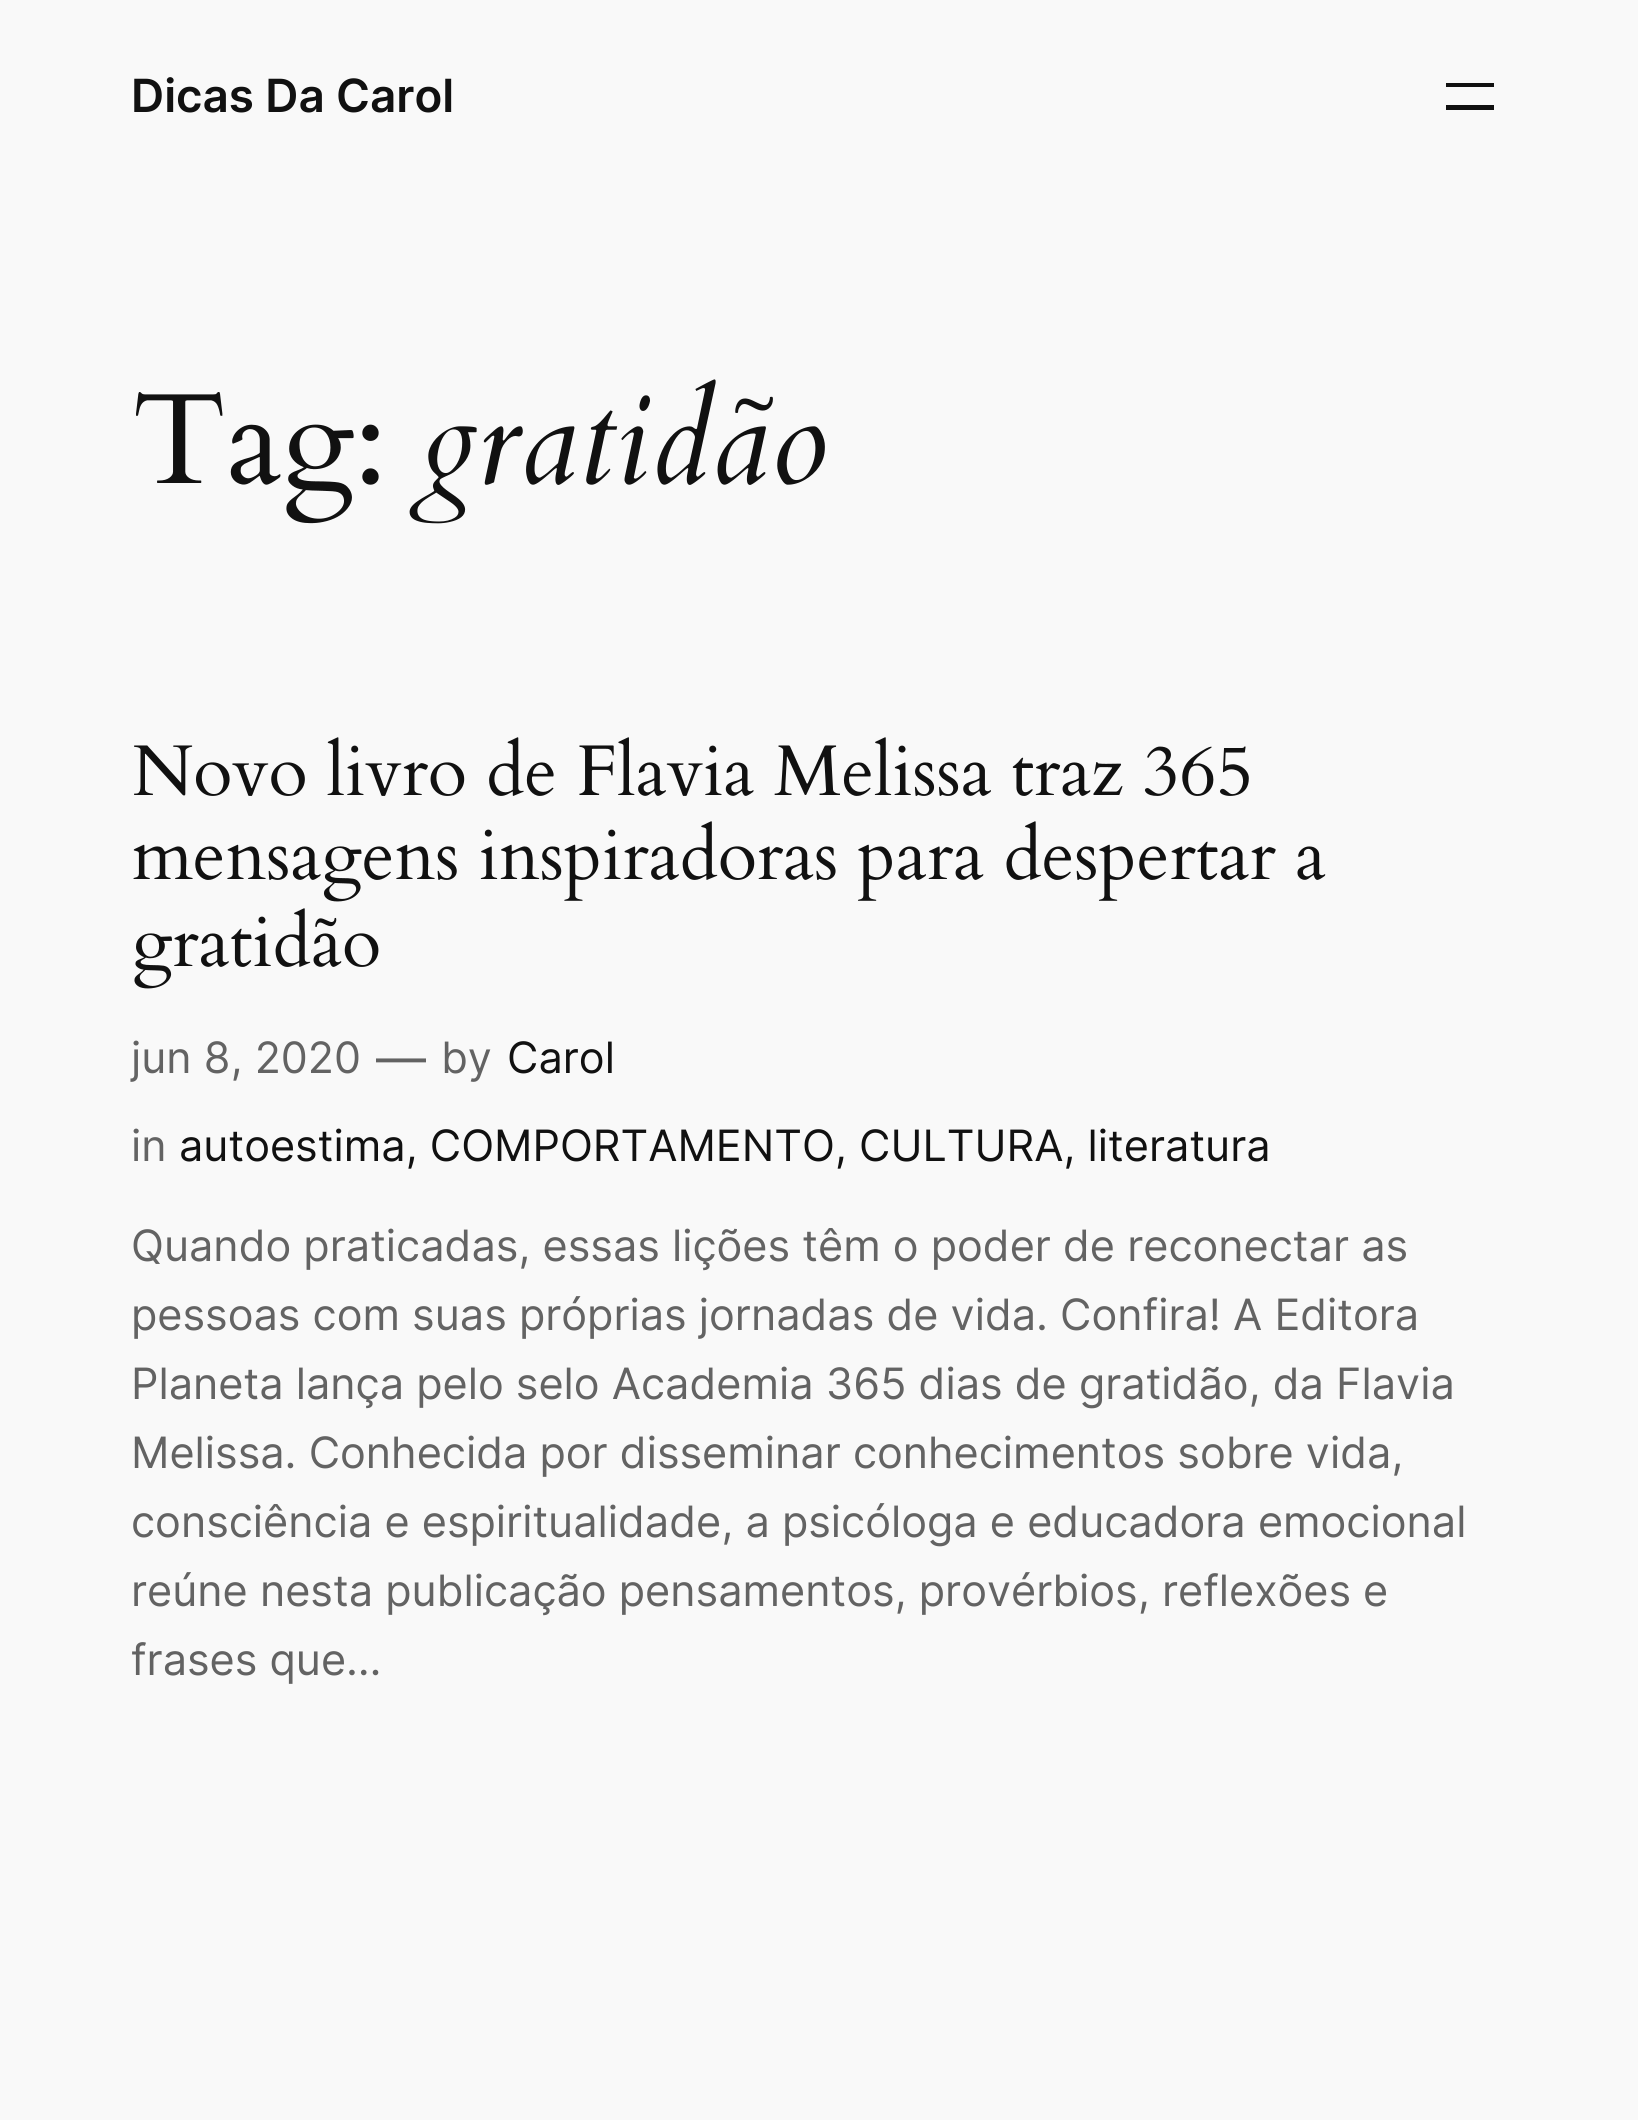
#include <cairo.h>
#include <math.h>
#include <stddef.h>

typedef struct { double x, y; const char *s; } line_t;

static void ink(cairo_t *ctx, unsigned color) {
    cairo_set_source_rgb(ctx, (color >> 16) / 255.0, (color >> 8 & 255) / 255.0, (color & 255) / 255.0);
}

static void paste(cairo_t *ctx, const char *path, double x, double y, double w, double h) {
    cairo_surface_t *image = cairo_image_surface_create_from_png(path);
    cairo_save(ctx);
    cairo_set_source_surface(ctx, image, x, y);
    cairo_rectangle(ctx, x, y, w, h);
    cairo_fill(ctx);
    cairo_restore(ctx);
    cairo_surface_destroy(image);
}

int main(void) {
    cairo_surface_t *surface = cairo_image_surface_create(CAIRO_FORMAT_RGB24, 1638, 2120);
    cairo_t *ctx = cairo_create(surface);
    cairo_font_options_t *options = cairo_font_options_create();
    cairo_font_options_set_hint_metrics(options, CAIRO_HINT_METRICS_OFF);
    cairo_font_options_set_hint_style(options, CAIRO_HINT_STYLE_NONE);
    cairo_set_font_options(ctx, options);
    cairo_set_miter_limit(ctx, 4);
    ink(ctx, 0xF9F9F9);
    cairo_paint(ctx);
    cairo_select_font_face(ctx, "Inter SemiBold", CAIRO_FONT_SLANT_NORMAL, CAIRO_FONT_WEIGHT_NORMAL);
    cairo_set_font_size(ctx, 45.75);
    ink(ctx, 0x111111);
    cairo_move_to(ctx, 131, 112);
    cairo_show_text(ctx, "Dicas Da Carol");
    cairo_rectangle(ctx, 1446, 83, 48, 4);
    cairo_fill(ctx);
    cairo_rectangle(ctx, 1446, 105, 48, 5);
    cairo_fill(ctx);
    paste(ctx, "media/1.png", 136, 392, 243, 132);
    cairo_select_font_face(ctx, "Cardo", CAIRO_FONT_SLANT_ITALIC, CAIRO_FONT_WEIGHT_NORMAL);
    cairo_set_font_size(ctx, 129);
    cairo_move_to(ctx, 420, 483);
    cairo_show_text(ctx, "gratidão");
    paste(ctx, "media/2.png", 134, 737, 1115, 59);
    paste(ctx, "media/3.png", 133, 821, 1193, 81);
    paste(ctx, "media/4.png", 134, 908, 245, 81);
    cairo_select_font_face(ctx, "Inter", CAIRO_FONT_SLANT_NORMAL, CAIRO_FONT_WEIGHT_NORMAL);
    cairo_set_font_size(ctx, 43.2);
    ink(ctx, 0x636363);
    cairo_move_to(ctx, 131, 1073);
    cairo_show_text(ctx, "jun 8, 2020");
    cairo_set_font_size(ctx, 50);
    cairo_move_to(ctx, 376, 1076);
    cairo_show_text(ctx, "—");
    cairo_set_font_size(ctx, 43.2);
    cairo_move_to(ctx, 441, 1073);
    cairo_show_text(ctx, "by");
    ink(ctx, 0x111111);
    cairo_move_to(ctx, 507, 1073);
    cairo_show_text(ctx, "Carol");
    ink(ctx, 0x636363);
    cairo_move_to(ctx, 131, 1161);
    cairo_show_text(ctx, "in");
    ink(ctx, 0x111111);
    cairo_move_to(ctx, 179, 1161);
    cairo_show_text(ctx, "autoestima, COMPORTAMENTO, CULTURA, literatura");
    ink(ctx, 0x636363);
    {
        static const line_t items[] = {
            {131, 1261, "Quando praticadas, essas lições têm o poder de reconectar as"},
            {131, 1330, "pessoas com suas próprias jornadas de vida. Confira! A Editora"},
            {131, 1399, "Planeta lança pelo selo Academia 365 dias de gratidão, da Flavia"},
            {131, 1468, "Melissa. Conhecida por disseminar conhecimentos sobre vida,"},
            {131, 1537, "consciência e espiritualidade, a psicóloga e educadora emocional"},
            {131, 1606, "reúne nesta publicação pensamentos, provérbios, reflexões e"},
            {131, 1675, "frases que…"},
        };
        for (size_t i = 0; i < sizeof items / sizeof *items; i++) {
            cairo_move_to(ctx, items[i].x, items[i].y);
            cairo_show_text(ctx, items[i].s);
        }
    }
    cairo_surface_write_to_png(surface, "image.png");
    cairo_font_options_destroy(options);
    cairo_destroy(ctx);
    cairo_surface_destroy(surface);
    return 0;
}
